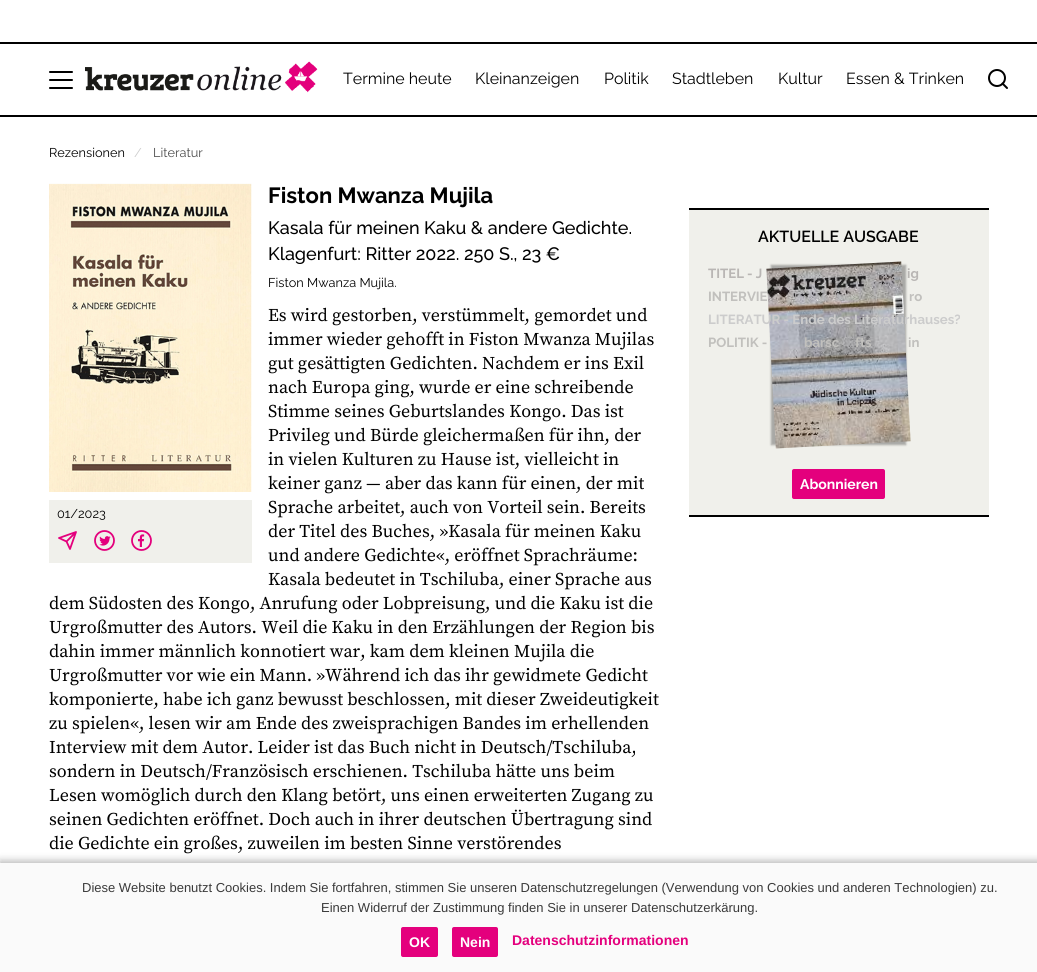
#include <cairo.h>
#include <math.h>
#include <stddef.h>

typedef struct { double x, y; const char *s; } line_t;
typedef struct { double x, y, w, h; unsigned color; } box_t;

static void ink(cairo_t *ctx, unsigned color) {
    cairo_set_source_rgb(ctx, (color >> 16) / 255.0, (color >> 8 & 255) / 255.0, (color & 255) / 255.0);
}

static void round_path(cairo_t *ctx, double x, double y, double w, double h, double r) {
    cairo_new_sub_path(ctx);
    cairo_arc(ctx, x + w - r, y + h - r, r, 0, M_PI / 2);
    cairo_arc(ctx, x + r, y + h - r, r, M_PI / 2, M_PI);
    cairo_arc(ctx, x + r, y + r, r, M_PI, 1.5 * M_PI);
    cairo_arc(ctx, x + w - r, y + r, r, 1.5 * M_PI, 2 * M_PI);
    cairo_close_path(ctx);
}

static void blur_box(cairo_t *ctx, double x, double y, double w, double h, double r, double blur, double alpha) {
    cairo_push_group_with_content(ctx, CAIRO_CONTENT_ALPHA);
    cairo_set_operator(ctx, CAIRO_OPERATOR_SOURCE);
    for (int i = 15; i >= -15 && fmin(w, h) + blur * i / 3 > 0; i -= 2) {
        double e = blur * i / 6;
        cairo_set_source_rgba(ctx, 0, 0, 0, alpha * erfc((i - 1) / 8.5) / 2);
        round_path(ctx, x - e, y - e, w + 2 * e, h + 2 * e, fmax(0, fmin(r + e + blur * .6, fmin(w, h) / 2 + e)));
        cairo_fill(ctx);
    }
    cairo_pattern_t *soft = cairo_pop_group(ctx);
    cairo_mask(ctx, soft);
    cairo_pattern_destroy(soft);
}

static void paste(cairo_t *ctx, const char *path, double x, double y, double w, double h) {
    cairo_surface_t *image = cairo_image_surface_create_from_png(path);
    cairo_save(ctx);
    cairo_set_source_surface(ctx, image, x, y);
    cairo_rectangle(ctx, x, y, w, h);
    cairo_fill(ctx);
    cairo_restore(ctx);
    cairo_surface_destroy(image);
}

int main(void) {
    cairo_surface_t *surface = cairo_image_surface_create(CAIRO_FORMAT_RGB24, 1037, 972);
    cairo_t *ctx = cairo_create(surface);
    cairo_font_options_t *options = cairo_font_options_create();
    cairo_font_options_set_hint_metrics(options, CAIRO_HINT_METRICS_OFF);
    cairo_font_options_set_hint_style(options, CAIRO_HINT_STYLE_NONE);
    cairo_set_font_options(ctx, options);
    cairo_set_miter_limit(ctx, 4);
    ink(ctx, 0xFFFFFF);
    cairo_paint(ctx);
    ink(ctx, 0x000000);
    cairo_rectangle(ctx, 0, 42, 1037, 2);
    cairo_fill(ctx);
    cairo_rectangle(ctx, 0, 115, 1037, 2);
    cairo_fill(ctx);
    round_path(ctx, 49, 71, 24, 2, 1);
    cairo_fill(ctx);
    round_path(ctx, 49, 79, 24, 2, 1);
    cairo_fill(ctx);
    round_path(ctx, 49, 87, 24, 2, 1);
    cairo_fill(ctx);
    paste(ctx, "media/1.png", 85, 61, 233, 32);
    cairo_select_font_face(ctx, "Raleway Thin", CAIRO_FONT_SLANT_NORMAL, CAIRO_FONT_WEIGHT_NORMAL);
    cairo_set_font_size(ctx, 16);
    {
        static const line_t items[] = {
            {343, 84, "Termine heute"},
            {475, 84, "Kleinanzeigen"},
            {604, 84, "Politik"},
            {672, 84, "Stadtleben"},
            {778, 84, "Kultur"},
            {846, 84, "Essen & Trinken"},
        };
        for (size_t i = 0; i < sizeof items / sizeof *items; i++) {
            cairo_move_to(ctx, items[i].x, items[i].y);
            cairo_show_text(ctx, items[i].s);
        }
    }
    cairo_new_path(ctx);
    cairo_arc(ctx, 997, 78, 8, 0, 2 * M_PI);
    cairo_stroke(ctx);
    cairo_new_path(ctx);
    cairo_move_to(ctx, 1007, 88);
    cairo_line_to(ctx, 1002.5, 83.5);
    cairo_set_line_cap(ctx, CAIRO_LINE_CAP_ROUND);
    cairo_set_line_join(ctx, CAIRO_LINE_JOIN_ROUND);
    cairo_stroke(ctx);
    cairo_set_font_size(ctx, 12.75);
    cairo_move_to(ctx, 49, 157);
    cairo_show_text(ctx, "Rezensionen");
    ink(ctx, 0xCCCCCC);
    cairo_move_to(ctx, 134, 157);
    cairo_show_text(ctx, "/");
    ink(ctx, 0x4D4D4D);
    cairo_move_to(ctx, 153, 157);
    cairo_show_text(ctx, "Literatur");
    cairo_select_font_face(ctx, "Raleway", CAIRO_FONT_SLANT_NORMAL, CAIRO_FONT_WEIGHT_BOLD);
    cairo_set_font_size(ctx, 22);
    ink(ctx, 0x000000);
    cairo_move_to(ctx, 268, 203);
    cairo_show_text(ctx, "Fiston Mwanza Mujila");
    cairo_select_font_face(ctx, "Raleway Medium", CAIRO_FONT_SLANT_NORMAL, CAIRO_FONT_WEIGHT_NORMAL);
    cairo_set_font_size(ctx, 18);
    cairo_move_to(ctx, 268, 234);
    cairo_show_text(ctx, "Kasala für meinen Kaku & andere Gedichte.");
    cairo_move_to(ctx, 268, 260);
    cairo_show_text(ctx, "Klagenfurt: Ritter 2022. 250 S., 23 €");
    cairo_select_font_face(ctx, "Raleway Thin", CAIRO_FONT_SLANT_NORMAL, CAIRO_FONT_WEIGHT_NORMAL);
    cairo_set_font_size(ctx, 12.75);
    cairo_move_to(ctx, 268, 287);
    cairo_show_text(ctx, "Fiston Mwanza Mujila.");
    cairo_select_font_face(ctx, "Source Serif Pro", CAIRO_FONT_SLANT_NORMAL, CAIRO_FONT_WEIGHT_NORMAL);
    cairo_set_font_size(ctx, 18);
    {
        static const line_t items[] = {
            {268, 321, "Es wird gestorben, verstümmelt, gemordet und"},
            {268, 345, "immer wieder gehofft in Fiston Mwanza Mujilas"},
            {268, 369, "gut gesättigten Gedichten. Nachdem er ins Exil"},
            {268, 393, "nach Europa ging, wurde er eine schreibende"},
            {268, 417, "Stimme seines Geburtslandes Kongo. Das ist"},
            {268, 441, "Privileg und Bürde gleichermaßen für ihn, der"},
            {268, 465, "in vielen Kulturen zu Hause ist, vielleicht in"},
            {268, 489, "keiner ganz — aber das kann für einen, der mit"},
            {268, 513, "Sprache arbeitet, auch von Vorteil sein. Bereits"},
            {268, 537, "der Titel des Buches, »Kasala für meinen Kaku"},
            {268, 561, "und andere Gedichte«, eröffnet Sprachräume:"},
            {268, 585, "Kasala bedeutet in Tschiluba, einer Sprache aus"},
            {49, 609, "dem Südosten des Kongo, Anrufung oder Lobpreisung, und die Kaku ist die"},
            {49, 633, "Urgroßmutter des Autors. Weil die Kaku in den Erzählungen der Region bis"},
            {49, 657, "dahin immer männlich konnotiert war, kam dem kleinen Mujila die"},
            {49, 681, "Urgroßmutter vor wie ein Mann. »Während ich das ihr gewidmete Gedicht"},
            {49, 705, "komponierte, habe ich ganz bewusst beschlossen, mit dieser Zweideutigkeit"},
            {49, 729, "zu spielen«, lesen wir am Ende des zweisprachigen Bandes im erhellenden"},
            {49, 753, "Interview mit dem Autor. Leider ist das Buch nicht in Deutsch/Tschiluba,"},
            {49, 777, "sondern in Deutsch/Französisch erschienen. Tschiluba hätte uns beim"},
            {49, 801, "Lesen womöglich durch den Klang betört, uns einen erweiterten Zugang zu"},
            {49, 825, "seinen Gedichten eröffnet. Doch auch in ihrer deutschen Übertragung sind"},
            {49, 849, "die Gedichte ein großes, zuweilen im besten Sinne verstörendes"},
        };
        for (size_t i = 0; i < sizeof items / sizeof *items; i++) {
            cairo_move_to(ctx, items[i].x, items[i].y);
            cairo_show_text(ctx, items[i].s);
        }
    }
    paste(ctx, "media/2.png", 49, 183, 203, 309);
    ink(ctx, 0xF0F0EB);
    cairo_rectangle(ctx, 49, 500, 203, 63);
    cairo_fill(ctx);
    cairo_select_font_face(ctx, "Raleway Thin", CAIRO_FONT_SLANT_NORMAL, CAIRO_FONT_WEIGHT_NORMAL);
    cairo_set_font_size(ctx, 12.75);
    ink(ctx, 0x000000);
    cairo_move_to(ctx, 57, 518);
    cairo_show_text(ctx, "01/2023");
    cairo_new_path(ctx);
    cairo_move_to(ctx, 76, 532);
    cairo_line_to(ctx, 66.5, 541.5);
    cairo_move_to(ctx, 76, 532);
    cairo_line_to(ctx, 70, 549);
    cairo_line_to(ctx, 66.5, 541.5);
    cairo_line_to(ctx, 59, 538);
    cairo_close_path(ctx);
    ink(ctx, 0xE4007D);
    cairo_set_line_width(ctx, 1.8);
    cairo_stroke(ctx);
    paste(ctx, "media/3.png", 94, 530, 21, 21);
    paste(ctx, "media/4.png", 131, 530, 21, 21);
    {
        static const box_t items[] = {
            {689, 210, 300, 305, 0xF0F0EB},
            {689, 208, 300, 2, 0x000000},
            {689, 515, 300, 2, 0x000000},
        };
        for (size_t i = 0; i < sizeof items / sizeof *items; i++) {
            ink(ctx, items[i].color);
            cairo_rectangle(ctx, items[i].x, items[i].y, items[i].w, items[i].h);
            cairo_fill(ctx);
        }
    }
    cairo_select_font_face(ctx, "Raleway SemiBold", CAIRO_FONT_SLANT_NORMAL, CAIRO_FONT_WEIGHT_NORMAL);
    cairo_set_font_size(ctx, 16);
    cairo_move_to(ctx, 758, 242);
    cairo_show_text(ctx, "AKTUELLE AUSGABE");
    ink(ctx, 0x000000);
    blur_box(ctx, 771, 265, 135, 180, 0, 1, 0.3);
    paste(ctx, "media/5.png", 766, 261, 145, 188);
    cairo_select_font_face(ctx, "Raleway", CAIRO_FONT_SLANT_NORMAL, CAIRO_FONT_WEIGHT_BOLD);
    cairo_set_font_size(ctx, 13.25);
    ink(ctx, 0xB9B6B4);
    cairo_move_to(ctx, 708, 278);
    cairo_show_text(ctx, "TITEL - J");
    cairo_move_to(ctx, 907, 278);
    cairo_show_text(ctx, "ig");
    ink(ctx, 0xC1C0BD);
    cairo_move_to(ctx, 708, 301);
    cairo_show_text(ctx, "INTERVIE");
    cairo_move_to(ctx, 909, 301);
    cairo_show_text(ctx, "ro");
    ink(ctx, 0xCCCCCC);
    cairo_move_to(ctx, 708, 324);
    cairo_show_text(ctx, "LITERATUR - Ende des Literaturhauses?");
    ink(ctx, 0xC1C0BD);
    {
        static const line_t items[] = {
            {708, 347, "POLITIK -"},
            {804, 347, "barsc"},
            {855, 347, "fts"},
            {908, 347, "in"},
        };
        for (size_t i = 0; i < sizeof items / sizeof *items; i++) {
            cairo_move_to(ctx, items[i].x, items[i].y);
            cairo_show_text(ctx, items[i].s);
        }
    }
    ink(ctx, 0xE4007D);
    round_path(ctx, 792, 469, 93, 30, 2);
    cairo_fill(ctx);
    cairo_set_font_size(ctx, 14);
    ink(ctx, 0xFFFFFF);
    cairo_move_to(ctx, 800, 489);
    cairo_show_text(ctx, "Abonnieren");
    ink(ctx, 0x000000);
    blur_box(ctx, 0, 861, 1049, 109, 0, 4, 0.3);
    ink(ctx, 0xFAFAFA);
    cairo_rectangle(ctx, 0, 863, 1037, 109);
    cairo_fill(ctx);
    cairo_select_font_face(ctx, "Liberation Sans", CAIRO_FONT_SLANT_NORMAL, CAIRO_FONT_WEIGHT_NORMAL);
    cairo_set_font_size(ctx, 13);
    ink(ctx, 0x3A3A3A);
    cairo_move_to(ctx, 82, 892);
    cairo_show_text(ctx, "Diese Website benutzt Cookies. Indem Sie fortfahren, stimmen Sie unseren Datenschutzregelungen (Verwendung von Cookies und anderen Technologien) zu.");
    cairo_move_to(ctx, 321, 912);
    cairo_show_text(ctx, "Einen Widerruf der Zustimmung finden Sie in unserer Datenschutzerkärung.");
    ink(ctx, 0xE4007D);
    round_path(ctx, 401, 927, 37, 30, 2);
    cairo_fill(ctx);
    cairo_select_font_face(ctx, "Liberation Sans", CAIRO_FONT_SLANT_NORMAL, CAIRO_FONT_WEIGHT_BOLD);
    cairo_set_font_size(ctx, 14);
    ink(ctx, 0xFFFFFF);
    cairo_move_to(ctx, 409, 947);
    cairo_show_text(ctx, "OK");
    ink(ctx, 0xE4007D);
    round_path(ctx, 452, 927, 46, 30, 2);
    cairo_fill(ctx);
    ink(ctx, 0xFFFFFF);
    cairo_move_to(ctx, 460, 947);
    cairo_show_text(ctx, "Nein");
    ink(ctx, 0xE4007D);
    cairo_move_to(ctx, 512, 945);
    cairo_show_text(ctx, "Datenschutzinformationen");
    cairo_surface_write_to_png(surface, "image.png");
    cairo_font_options_destroy(options);
    cairo_destroy(ctx);
    cairo_surface_destroy(surface);
    return 0;
}
